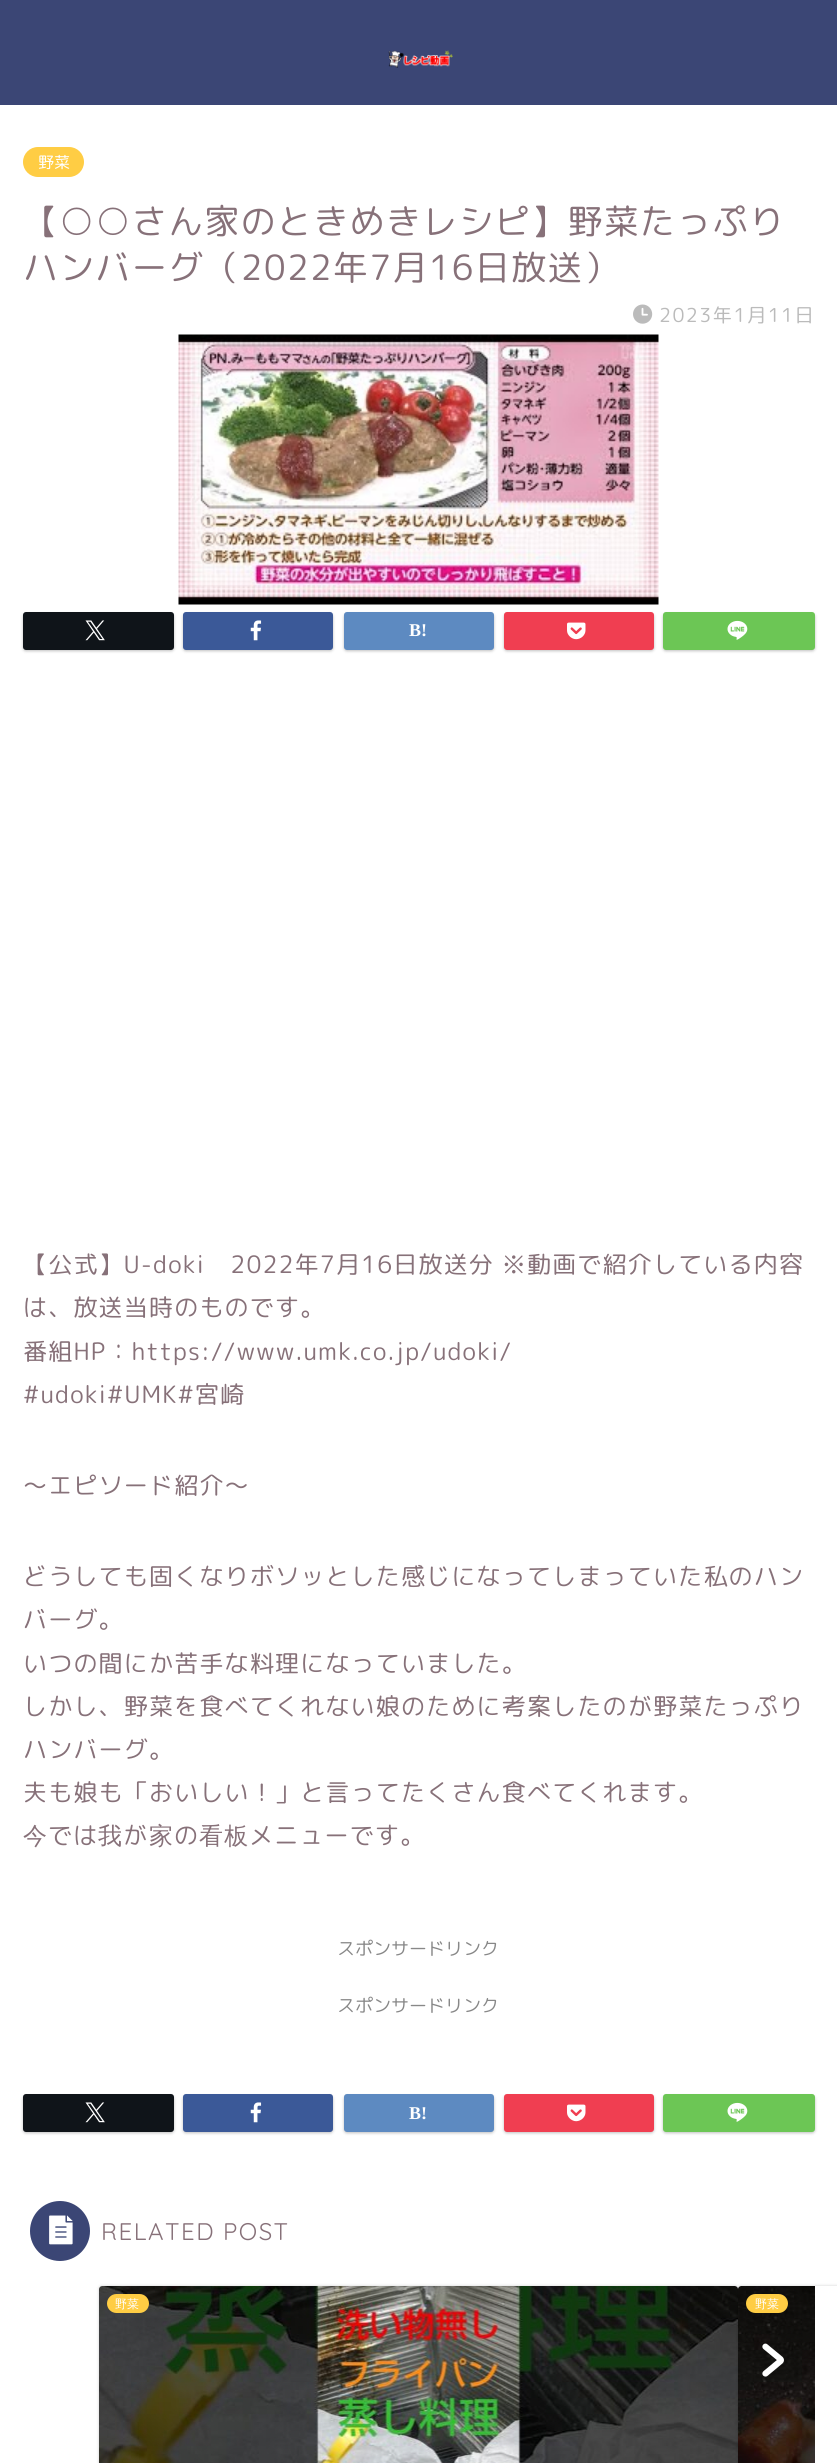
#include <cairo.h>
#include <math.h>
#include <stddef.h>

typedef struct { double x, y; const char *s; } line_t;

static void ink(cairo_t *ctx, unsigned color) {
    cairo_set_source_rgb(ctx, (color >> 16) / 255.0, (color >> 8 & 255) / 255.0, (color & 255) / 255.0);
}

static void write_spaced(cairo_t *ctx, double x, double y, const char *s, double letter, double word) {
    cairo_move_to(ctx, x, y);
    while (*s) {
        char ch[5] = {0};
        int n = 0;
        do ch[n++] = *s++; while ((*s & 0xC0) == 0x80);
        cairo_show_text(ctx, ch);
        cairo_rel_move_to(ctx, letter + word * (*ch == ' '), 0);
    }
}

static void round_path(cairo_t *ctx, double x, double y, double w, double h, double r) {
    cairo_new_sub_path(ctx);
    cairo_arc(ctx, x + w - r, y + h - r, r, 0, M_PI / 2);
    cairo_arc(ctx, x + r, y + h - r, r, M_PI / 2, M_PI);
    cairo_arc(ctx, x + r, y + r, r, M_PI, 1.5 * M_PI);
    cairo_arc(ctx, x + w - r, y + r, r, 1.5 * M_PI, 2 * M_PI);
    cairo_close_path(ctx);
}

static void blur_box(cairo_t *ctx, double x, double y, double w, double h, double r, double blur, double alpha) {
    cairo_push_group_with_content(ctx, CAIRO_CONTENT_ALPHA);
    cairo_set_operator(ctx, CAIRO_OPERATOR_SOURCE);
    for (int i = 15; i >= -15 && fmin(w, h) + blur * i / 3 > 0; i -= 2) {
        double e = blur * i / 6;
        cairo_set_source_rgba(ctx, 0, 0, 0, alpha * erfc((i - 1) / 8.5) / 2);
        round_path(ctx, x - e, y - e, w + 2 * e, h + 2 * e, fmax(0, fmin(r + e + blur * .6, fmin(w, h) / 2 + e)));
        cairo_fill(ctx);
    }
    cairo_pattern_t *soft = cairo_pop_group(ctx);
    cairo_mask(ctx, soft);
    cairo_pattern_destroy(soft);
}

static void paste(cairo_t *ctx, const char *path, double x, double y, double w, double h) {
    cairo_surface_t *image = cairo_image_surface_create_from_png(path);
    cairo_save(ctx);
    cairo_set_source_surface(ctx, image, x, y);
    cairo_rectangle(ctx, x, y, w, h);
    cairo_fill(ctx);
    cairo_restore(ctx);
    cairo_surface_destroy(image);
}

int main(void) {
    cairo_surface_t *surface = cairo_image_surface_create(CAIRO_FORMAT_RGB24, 837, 2463);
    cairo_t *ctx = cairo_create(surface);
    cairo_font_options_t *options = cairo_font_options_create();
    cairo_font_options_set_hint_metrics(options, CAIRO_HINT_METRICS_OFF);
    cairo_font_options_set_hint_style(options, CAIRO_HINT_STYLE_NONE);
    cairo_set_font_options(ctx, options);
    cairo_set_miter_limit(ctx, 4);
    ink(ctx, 0xFFFFFF);
    cairo_paint(ctx);
    ink(ctx, 0x3B4675);
    cairo_rectangle(ctx, 0, 0, 837, 105);
    cairo_fill(ctx);
    paste(ctx, "media/1.png", 388, 50, 65, 18);
    ink(ctx, 0xFFCD44);
    round_path(ctx, 23, 147, 61, 30, 15);
    cairo_fill(ctx);
    cairo_select_font_face(ctx, "Rounded Mplus 1c", CAIRO_FONT_SLANT_NORMAL, CAIRO_FONT_WEIGHT_NORMAL);
    cairo_set_font_size(ctx, 16);
    ink(ctx, 0xFFFFFF);
    cairo_move_to(ctx, 38, 168);
    cairo_show_text(ctx, "野菜");
    cairo_set_font_size(ctx, 34.8);
    ink(ctx, 0x877179);
    write_spaced(ctx, 23, 234, "【○○さん家のときめきレシピ】野菜たっぷり", 1.5, 0);
    write_spaced(ctx, 23, 280, "ハンバーグ（2022年7月16日放送）", 1.5, 0);
    paste(ctx, "media/2.png", 633, 304, 20, 20);
    cairo_set_font_size(ctx, 19.25);
    ink(ctx, 0xBBBBBB);
    write_spaced(ctx, 659, 322, "2023年1月11日", 1.5, 0);
    paste(ctx, "media/3.png", 178, 334, 481, 271);
    ink(ctx, 0x000000);
    blur_box(ctx, 23, 614, 151, 37, 3, 1.5, 0.25);
    ink(ctx, 0x0F1419);
    round_path(ctx, 24.5, 613.5, 148, 35, 1.5);
    cairo_fill_preserve(ctx);
    cairo_set_line_width(ctx, 3);
    cairo_stroke(ctx);
    paste(ctx, "media/4.png", 85, 620, 20, 21);
    ink(ctx, 0x000000);
    blur_box(ctx, 183, 614, 150, 37, 3, 1.5, 0.25);
    ink(ctx, 0x3B5998);
    round_path(ctx, 184.5, 613.5, 147, 35, 1.5);
    cairo_fill_preserve(ctx);
    cairo_stroke(ctx);
    paste(ctx, "media/5.png", 250, 620, 12, 21);
    ink(ctx, 0x000000);
    blur_box(ctx, 344, 614, 150, 37, 3, 1.5, 0.25);
    ink(ctx, 0x5D8AC1);
    round_path(ctx, 345.5, 613.5, 147, 35, 1.5);
    cairo_fill_preserve(ctx);
    cairo_stroke(ctx);
    cairo_select_font_face(ctx, "Liberation Serif", CAIRO_FONT_SLANT_NORMAL, CAIRO_FONT_WEIGHT_BOLD);
    cairo_set_font_size(ctx, 18);
    ink(ctx, 0xFFFFFF);
    cairo_move_to(ctx, 409, 636);
    cairo_show_text(ctx, "B!");
    ink(ctx, 0x000000);
    blur_box(ctx, 504, 614, 150, 37, 3, 1.5, 0.25);
    ink(ctx, 0xF03E51);
    round_path(ctx, 505.5, 613.5, 147, 35, 1.5);
    cairo_fill_preserve(ctx);
    cairo_stroke(ctx);
    paste(ctx, "media/6.png", 567, 622, 19, 18);
    ink(ctx, 0x000000);
    blur_box(ctx, 663, 614, 152, 37, 3, 1.5, 0.25);
    ink(ctx, 0x6CC655);
    round_path(ctx, 664.5, 613.5, 149, 35, 1.5);
    cairo_fill_preserve(ctx);
    cairo_stroke(ctx);
    paste(ctx, "media/7.png", 727, 620, 21, 20);
    cairo_select_font_face(ctx, "Rounded Mplus 1c", CAIRO_FONT_SLANT_NORMAL, CAIRO_FONT_WEIGHT_NORMAL);
    cairo_set_font_size(ctx, 24);
    ink(ctx, 0x877179);
    {
        static const line_t items[] = {
            {23, 1273, "【公式】U-doki　2022年7月16日放送分 ※動画で紹介している内容"},
            {23, 1316, "は、放送当時のものです。"},
            {23, 1360, "番組HP：https://www.umk.co.jp/udoki/"},
            {23, 1403, "#udoki#UMK#宮崎"},
            {23, 1494, "～エピソード紹介～"},
            {23, 1585, "どうしても固くなりボソッとした感じになってしまっていた私のハン"},
            {23, 1628, "バーグ。"},
            {23, 1672, "いつの間にか苦手な料理になっていました。"},
            {23, 1715, "しかし、野菜を食べてくれない娘のために考案したのが野菜たっぷり"},
            {23, 1758, "ハンバーグ。"},
            {23, 1801, "夫も娘も「おいしい！」と言ってたくさん食べてくれます。"},
        };
        for (size_t i = 0; i < sizeof items / sizeof *items; i++) {
            write_spaced(ctx, items[i].x, items[i].y, items[i].s, 1.2, 0);
        }
    }
    cairo_select_font_face(ctx, "WenQuanYi Zen Hei Medium", CAIRO_FONT_SLANT_NORMAL, CAIRO_FONT_WEIGHT_NORMAL);
    write_spaced(ctx, 23, 1844, "今", 1.2, 0);
    cairo_select_font_face(ctx, "Rounded Mplus 1c", CAIRO_FONT_SLANT_NORMAL, CAIRO_FONT_WEIGHT_NORMAL);
    write_spaced(ctx, 48, 1844, "では", 1.2, 0);
    cairo_select_font_face(ctx, "WenQuanYi Zen Hei Medium", CAIRO_FONT_SLANT_NORMAL, CAIRO_FONT_WEIGHT_NORMAL);
    write_spaced(ctx, 98, 1844, "我", 1.2, 0);
    cairo_select_font_face(ctx, "Rounded Mplus 1c", CAIRO_FONT_SLANT_NORMAL, CAIRO_FONT_WEIGHT_NORMAL);
    write_spaced(ctx, 123, 1844, "が", 1.2, 0);
    cairo_select_font_face(ctx, "WenQuanYi Zen Hei Medium", CAIRO_FONT_SLANT_NORMAL, CAIRO_FONT_WEIGHT_NORMAL);
    write_spaced(ctx, 149, 1844, "家", 1.2, 0);
    cairo_select_font_face(ctx, "Rounded Mplus 1c", CAIRO_FONT_SLANT_NORMAL, CAIRO_FONT_WEIGHT_NORMAL);
    write_spaced(ctx, 174, 1844, "の", 1.2, 0);
    cairo_select_font_face(ctx, "WenQuanYi Zen Hei Medium", CAIRO_FONT_SLANT_NORMAL, CAIRO_FONT_WEIGHT_NORMAL);
    write_spaced(ctx, 199, 1844, "看板", 1.2, 0);
    cairo_select_font_face(ctx, "Rounded Mplus 1c", CAIRO_FONT_SLANT_NORMAL, CAIRO_FONT_WEIGHT_NORMAL);
    write_spaced(ctx, 249, 1844, "メニューです。", 1.2, 0);
    cairo_set_font_size(ctx, 18);
    ink(ctx, 0x888888);
    cairo_move_to(ctx, 337, 1955);
    cairo_show_text(ctx, "スポンサードリンク");
    cairo_move_to(ctx, 337, 2012);
    cairo_show_text(ctx, "スポンサードリンク");
    ink(ctx, 0x000000);
    blur_box(ctx, 23, 2096, 151, 37, 3, 1.5, 0.25);
    ink(ctx, 0x0F1419);
    round_path(ctx, 24.5, 2095.5, 148, 35, 1.5);
    cairo_fill_preserve(ctx);
    cairo_stroke(ctx);
    paste(ctx, "media/4.png", 85, 2102, 20, 21);
    ink(ctx, 0x000000);
    blur_box(ctx, 183, 2096, 150, 37, 3, 1.5, 0.25);
    ink(ctx, 0x3B5998);
    round_path(ctx, 184.5, 2095.5, 147, 35, 1.5);
    cairo_fill_preserve(ctx);
    cairo_stroke(ctx);
    paste(ctx, "media/5.png", 250, 2102, 12, 21);
    ink(ctx, 0x000000);
    blur_box(ctx, 344, 2096, 150, 37, 3, 1.5, 0.25);
    ink(ctx, 0x5D8AC1);
    round_path(ctx, 345.5, 2095.5, 147, 35, 1.5);
    cairo_fill_preserve(ctx);
    cairo_stroke(ctx);
    cairo_select_font_face(ctx, "Liberation Serif", CAIRO_FONT_SLANT_NORMAL, CAIRO_FONT_WEIGHT_BOLD);
    ink(ctx, 0xFFFFFF);
    cairo_move_to(ctx, 409, 2119);
    cairo_show_text(ctx, "B!");
    ink(ctx, 0x000000);
    blur_box(ctx, 504, 2096, 150, 37, 3, 1.5, 0.25);
    ink(ctx, 0xF03E51);
    round_path(ctx, 505.5, 2095.5, 147, 35, 1.5);
    cairo_fill_preserve(ctx);
    cairo_stroke(ctx);
    paste(ctx, "media/6.png", 567, 2104, 19, 18);
    ink(ctx, 0x000000);
    blur_box(ctx, 663, 2096, 152, 37, 3, 1.5, 0.25);
    ink(ctx, 0x6CC655);
    round_path(ctx, 664.5, 2095.5, 149, 35, 1.5);
    cairo_fill_preserve(ctx);
    cairo_stroke(ctx);
    paste(ctx, "media/7.png", 727, 2102, 21, 20);
    ink(ctx, 0x3B4675);
    cairo_arc(ctx, 60, 2231, 29, 0, 2 * M_PI);
    cairo_fill_preserve(ctx);
    cairo_set_line_width(ctx, 2);
    cairo_stroke(ctx);
    paste(ctx, "media/8.png", 49, 2215, 24, 30);
    cairo_select_font_face(ctx, "Quicksand Light", CAIRO_FONT_SLANT_NORMAL, CAIRO_FONT_WEIGHT_NORMAL);
    cairo_set_font_size(ctx, 24);
    ink(ctx, 0x877179);
    write_spaced(ctx, 101, 2240, "RELATED POST", 1.5, 0);
    ink(ctx, 0x000000);
    blur_box(ctx, 99, 2286, 639, 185, 3, 1.5, 0.18);
    ink(ctx, 0xFFFFFF);
    round_path(ctx, 99, 2286, 639, 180, 3);
    cairo_fill(ctx);
    paste(ctx, "media/9.png", 99, 2286, 639, 177);
    ink(ctx, 0xFFCD44);
    round_path(ctx, 107, 2294, 42, 19, 9.5);
    cairo_fill(ctx);
    cairo_select_font_face(ctx, "WenQuanYi Zen Hei Medium", CAIRO_FONT_SLANT_NORMAL, CAIRO_FONT_WEIGHT_NORMAL);
    cairo_set_font_size(ctx, 12);
    ink(ctx, 0xFFFFFF);
    cairo_move_to(ctx, 115, 2308);
    cairo_show_text(ctx, "野菜");
    cairo_save(ctx);
    cairo_set_fill_rule(ctx, CAIRO_FILL_RULE_EVEN_ODD);
    cairo_new_path(ctx);
    cairo_move_to(ctx, 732, 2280);
    cairo_line_to(ctx, 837, 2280);
    cairo_line_to(ctx, 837, 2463);
    cairo_line_to(ctx, 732, 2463);
    cairo_close_path(ctx);
    cairo_move_to(ctx, 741, 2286);
    cairo_line_to(ctx, 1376, 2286);
    cairo_curve_to(ctx, 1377.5, 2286, 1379, 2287.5, 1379, 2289);
    cairo_line_to(ctx, 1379, 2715);
    cairo_curve_to(ctx, 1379, 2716.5, 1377.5, 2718, 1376, 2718);
    cairo_line_to(ctx, 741, 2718);
    cairo_curve_to(ctx, 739.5, 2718, 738, 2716.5, 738, 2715);
    cairo_line_to(ctx, 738, 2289);
    cairo_curve_to(ctx, 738, 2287.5, 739.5, 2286, 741, 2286);
    cairo_close_path(ctx);
    cairo_clip(ctx);
    ink(ctx, 0x000000);
    blur_box(ctx, 738, 2286, 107, 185, 3, 1.5, 0.18);
    cairo_restore(ctx);
    cairo_new_path(ctx);
    cairo_move_to(ctx, 741, 2286);
    cairo_line_to(ctx, 815, 2286);
    cairo_line_to(ctx, 815, 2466);
    cairo_line_to(ctx, 741, 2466);
    cairo_curve_to(ctx, 739.5, 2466, 738, 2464.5, 738, 2463);
    cairo_line_to(ctx, 738, 2289);
    cairo_curve_to(ctx, 738, 2287.5, 739.5, 2286, 741, 2286);
    cairo_close_path(ctx);
    cairo_fill(ctx);
    paste(ctx, "media/10.png", 738, 2286, 77, 177);
    ink(ctx, 0xFFCD44);
    round_path(ctx, 746, 2294, 42, 19, 9.5);
    cairo_fill(ctx);
    ink(ctx, 0xFFFFFF);
    cairo_move_to(ctx, 755, 2308);
    cairo_show_text(ctx, "野菜");
    paste(ctx, "media/11.png", 762, 2343, 22, 34);
    cairo_surface_write_to_png(surface, "image.png");
    cairo_font_options_destroy(options);
    cairo_destroy(ctx);
    cairo_surface_destroy(surface);
    return 0;
}
